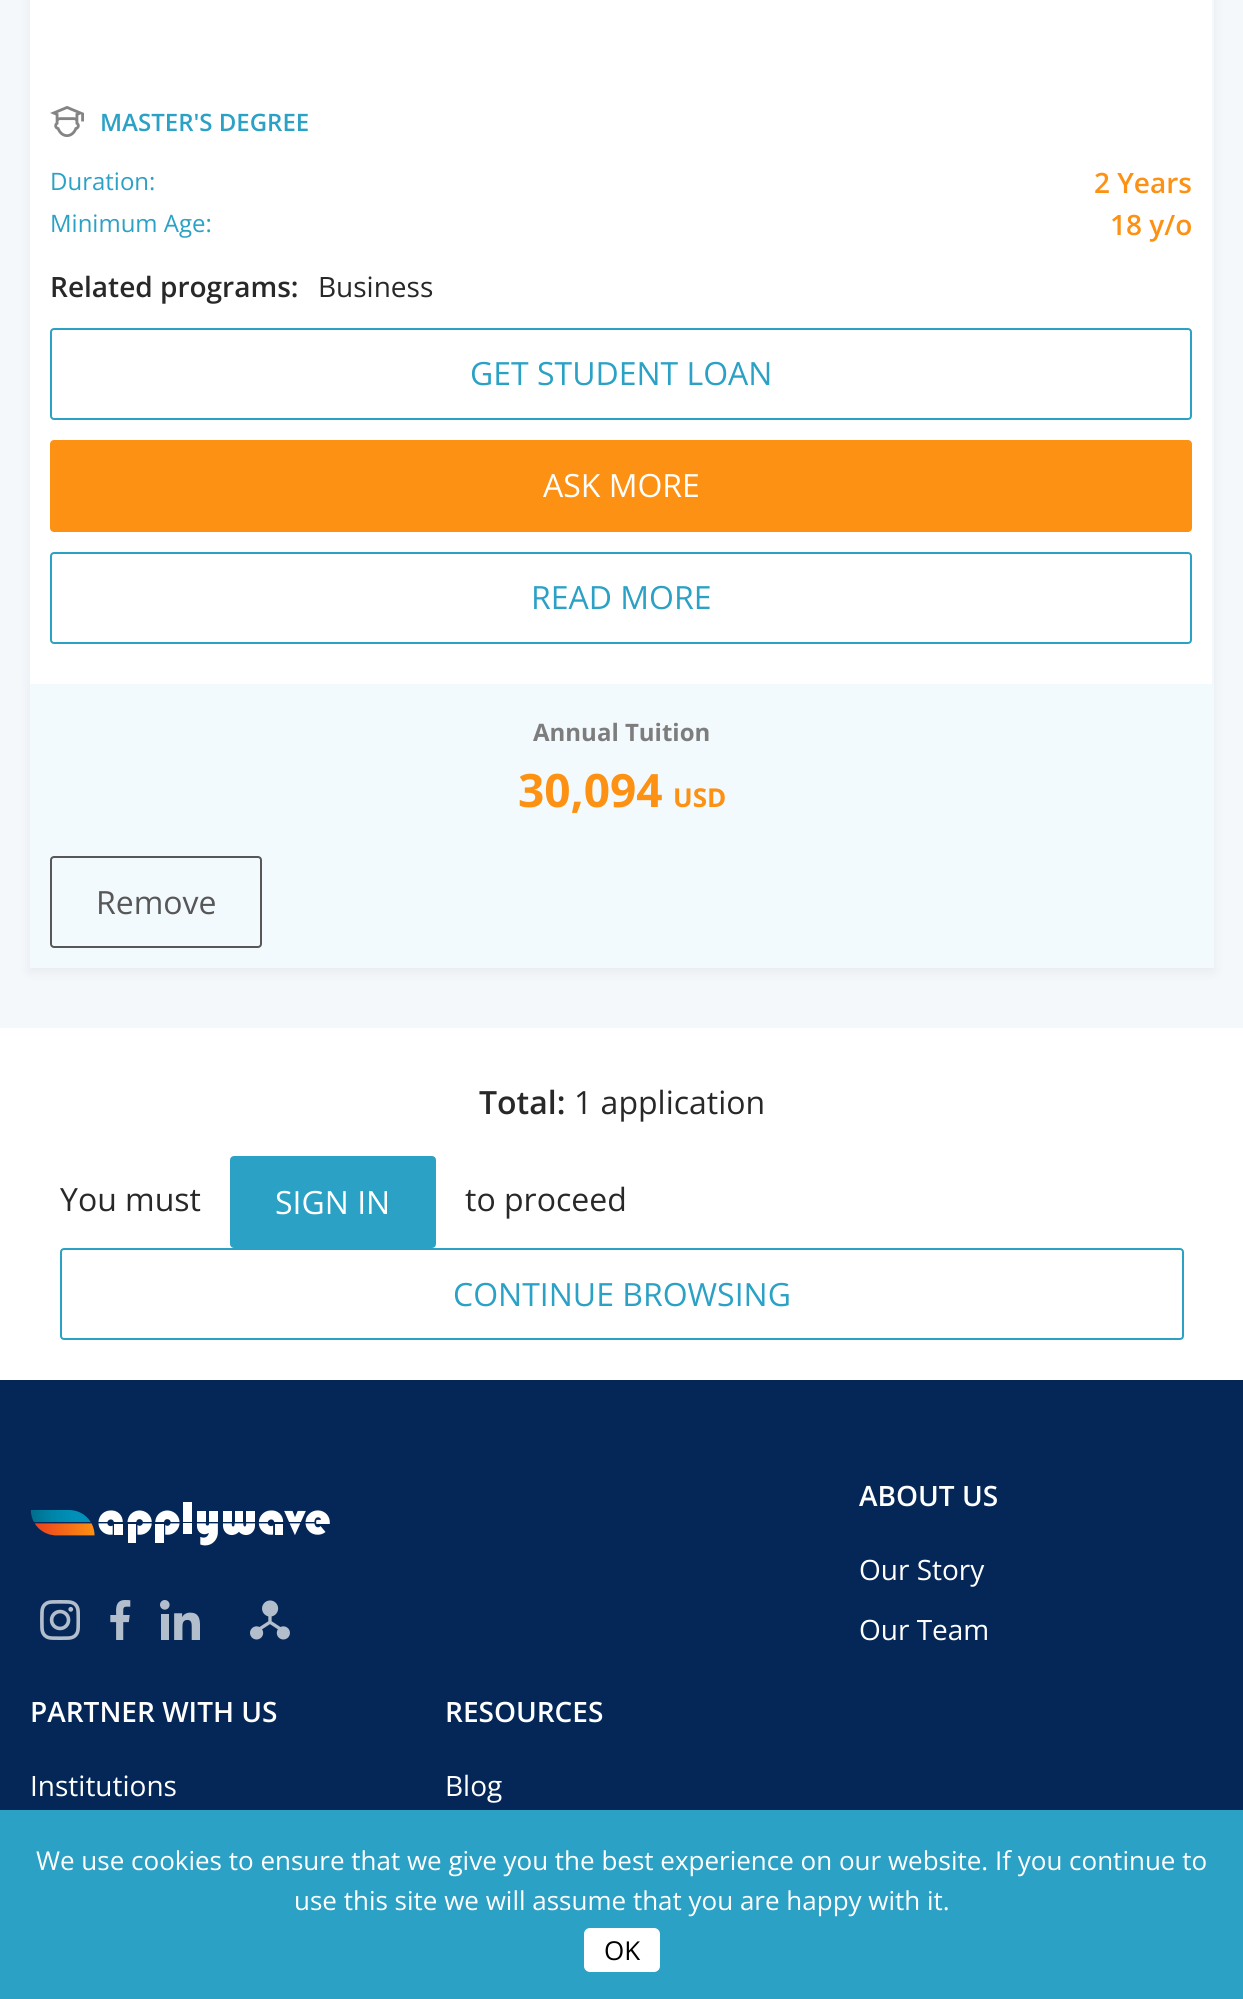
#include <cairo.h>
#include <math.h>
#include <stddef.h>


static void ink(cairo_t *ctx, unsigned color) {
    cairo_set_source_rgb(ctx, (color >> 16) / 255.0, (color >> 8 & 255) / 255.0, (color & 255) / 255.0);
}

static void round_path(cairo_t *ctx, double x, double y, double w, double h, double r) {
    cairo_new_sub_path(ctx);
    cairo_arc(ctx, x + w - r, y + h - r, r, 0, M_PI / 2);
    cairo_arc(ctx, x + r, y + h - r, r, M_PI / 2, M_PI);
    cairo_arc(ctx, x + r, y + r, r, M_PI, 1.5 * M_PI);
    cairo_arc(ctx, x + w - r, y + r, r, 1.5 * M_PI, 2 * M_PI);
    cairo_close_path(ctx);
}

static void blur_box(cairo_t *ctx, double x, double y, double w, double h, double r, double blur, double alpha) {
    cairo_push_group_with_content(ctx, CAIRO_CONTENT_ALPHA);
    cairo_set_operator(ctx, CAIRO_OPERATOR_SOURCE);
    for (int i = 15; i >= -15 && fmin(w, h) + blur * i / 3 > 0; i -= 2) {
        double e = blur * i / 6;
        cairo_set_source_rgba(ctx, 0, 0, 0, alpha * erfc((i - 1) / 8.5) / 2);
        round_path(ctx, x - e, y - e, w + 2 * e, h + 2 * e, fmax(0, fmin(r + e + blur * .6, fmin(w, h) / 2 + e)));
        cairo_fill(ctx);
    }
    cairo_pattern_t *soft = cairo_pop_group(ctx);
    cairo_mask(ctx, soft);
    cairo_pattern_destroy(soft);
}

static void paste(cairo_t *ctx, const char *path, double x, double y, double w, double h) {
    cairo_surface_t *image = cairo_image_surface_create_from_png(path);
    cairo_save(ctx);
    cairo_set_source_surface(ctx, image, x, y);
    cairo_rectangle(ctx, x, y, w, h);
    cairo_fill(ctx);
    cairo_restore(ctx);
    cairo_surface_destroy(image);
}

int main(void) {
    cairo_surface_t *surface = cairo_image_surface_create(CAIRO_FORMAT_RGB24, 1243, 1999);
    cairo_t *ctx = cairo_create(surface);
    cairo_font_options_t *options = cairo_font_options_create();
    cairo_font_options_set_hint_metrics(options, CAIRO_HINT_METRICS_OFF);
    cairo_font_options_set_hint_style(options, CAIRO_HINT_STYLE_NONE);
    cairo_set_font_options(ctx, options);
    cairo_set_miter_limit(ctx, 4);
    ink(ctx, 0xF5F8FB);
    cairo_paint(ctx);
    ink(ctx, 0x45495B);
    blur_box(ctx, 30, -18, 1184, 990, 0, 6, 0.08);
    ink(ctx, 0xFFFFFF);
    cairo_rectangle(ctx, 30, 0, 1182, 684);
    cairo_fill(ctx);
    ink(ctx, 0xF5F8FB);
    cairo_rectangle(ctx, 1212, 0, 2, 684);
    cairo_fill(ctx);
    paste(ctx, "media/1.png", 50, 106, 34, 31);
    cairo_select_font_face(ctx, "Open Sans SemiBold", CAIRO_FONT_SLANT_NORMAL, CAIRO_FONT_WEIGHT_NORMAL);
    cairo_set_font_size(ctx, 24);
    ink(ctx, 0x2BA1C6);
    cairo_move_to(ctx, 100, 131);
    cairo_show_text(ctx, "MASTER'S DEGREE");
    cairo_select_font_face(ctx, "Open Sans", CAIRO_FONT_SLANT_NORMAL, CAIRO_FONT_WEIGHT_NORMAL);
    cairo_move_to(ctx, 50, 190);
    cairo_show_text(ctx, "Duration:");
    cairo_select_font_face(ctx, "Open Sans SemiBold", CAIRO_FONT_SLANT_NORMAL, CAIRO_FONT_WEIGHT_NORMAL);
    cairo_set_font_size(ctx, 28);
    ink(ctx, 0xFC9114);
    cairo_move_to(ctx, 1094, 193);
    cairo_show_text(ctx, "2 Years");
    cairo_select_font_face(ctx, "Open Sans", CAIRO_FONT_SLANT_NORMAL, CAIRO_FONT_WEIGHT_NORMAL);
    cairo_set_font_size(ctx, 24);
    ink(ctx, 0x2BA1C6);
    cairo_move_to(ctx, 50, 232);
    cairo_show_text(ctx, "Minimum Age:");
    cairo_select_font_face(ctx, "Open Sans SemiBold", CAIRO_FONT_SLANT_NORMAL, CAIRO_FONT_WEIGHT_NORMAL);
    cairo_set_font_size(ctx, 28);
    ink(ctx, 0xFC9114);
    cairo_move_to(ctx, 1110, 235);
    cairo_show_text(ctx, "18 y/o");
    ink(ctx, 0x282828);
    cairo_move_to(ctx, 50, 297);
    cairo_show_text(ctx, "Related programs:");
    cairo_select_font_face(ctx, "Open Sans", CAIRO_FONT_SLANT_NORMAL, CAIRO_FONT_WEIGHT_NORMAL);
    cairo_move_to(ctx, 318, 297);
    cairo_show_text(ctx, "Business");
    round_path(ctx, 51, 329, 1140, 90, 3);
    ink(ctx, 0x2BA1C6);
    cairo_stroke(ctx);
    cairo_set_font_size(ctx, 32);
    cairo_move_to(ctx, 470, 385);
    cairo_show_text(ctx, "GET STUDENT LOAN");
    ink(ctx, 0xFC9114);
    round_path(ctx, 51, 441, 1140, 90, 3);
    cairo_fill_preserve(ctx);
    cairo_stroke(ctx);
    ink(ctx, 0xFFFFFF);
    cairo_move_to(ctx, 543, 497);
    cairo_show_text(ctx, "ASK MORE");
    round_path(ctx, 51, 553, 1140, 90, 3);
    ink(ctx, 0x2BA1C6);
    cairo_stroke(ctx);
    cairo_move_to(ctx, 531, 609);
    cairo_show_text(ctx, "READ MORE");
    ink(ctx, 0xF3FAFD);
    cairo_rectangle(ctx, 30, 684, 1184, 284);
    cairo_fill(ctx);
    cairo_select_font_face(ctx, "Open Sans", CAIRO_FONT_SLANT_NORMAL, CAIRO_FONT_WEIGHT_BOLD);
    cairo_set_font_size(ctx, 24);
    ink(ctx, 0x7D7D7D);
    cairo_move_to(ctx, 533, 741);
    cairo_show_text(ctx, "Annual Tuition");
    cairo_set_font_size(ctx, 46);
    ink(ctx, 0xFC9114);
    cairo_move_to(ctx, 518, 807);
    cairo_show_text(ctx, "30,094");
    cairo_set_font_size(ctx, 26);
    cairo_move_to(ctx, 673, 807);
    cairo_show_text(ctx, "USD");
    round_path(ctx, 51, 857, 210, 90, 3);
    ink(ctx, 0x575757);
    cairo_stroke(ctx);
    cairo_select_font_face(ctx, "Open Sans", CAIRO_FONT_SLANT_NORMAL, CAIRO_FONT_WEIGHT_NORMAL);
    cairo_set_font_size(ctx, 32);
    cairo_move_to(ctx, 96, 914);
    cairo_show_text(ctx, "Remove");
    ink(ctx, 0xFFFFFF);
    cairo_rectangle(ctx, 0, 1028, 1243, 352);
    cairo_fill(ctx);
    cairo_select_font_face(ctx, "Open Sans SemiBold", CAIRO_FONT_SLANT_NORMAL, CAIRO_FONT_WEIGHT_NORMAL);
    ink(ctx, 0x282828);
    cairo_move_to(ctx, 479, 1114);
    cairo_show_text(ctx, "Total:");
    cairo_select_font_face(ctx, "Open Sans", CAIRO_FONT_SLANT_NORMAL, CAIRO_FONT_WEIGHT_NORMAL);
    cairo_move_to(ctx, 574, 1114);
    cairo_show_text(ctx, "1 application");
    cairo_move_to(ctx, 60, 1211);
    cairo_show_text(ctx, "You must");
    ink(ctx, 0x2BA1C6);
    round_path(ctx, 231, 1157, 204, 90, 3);
    cairo_fill_preserve(ctx);
    cairo_stroke(ctx);
    ink(ctx, 0xFFFFFF);
    cairo_move_to(ctx, 275, 1214);
    cairo_show_text(ctx, "SIGN IN");
    ink(ctx, 0x282828);
    cairo_move_to(ctx, 465, 1211);
    cairo_show_text(ctx, "to proceed");
    round_path(ctx, 61, 1249, 1122, 90, 3);
    ink(ctx, 0x2BA1C6);
    cairo_stroke(ctx);
    cairo_move_to(ctx, 453, 1306);
    cairo_show_text(ctx, "CONTINUE BROWSING");
    ink(ctx, 0x042758);
    cairo_rectangle(ctx, 0, 1380, 1243, 430);
    cairo_fill(ctx);
    paste(ctx, "media/2.png", 30, 1502, 300, 44);
    paste(ctx, "media/3.png", 40, 1600, 40, 40);
    paste(ctx, "media/4.png", 110, 1600, 21, 40);
    paste(ctx, "media/5.png", 160, 1600, 40, 40);
    paste(ctx, "media/6.png", 250, 1600, 40, 40);
    cairo_select_font_face(ctx, "Open Sans SemiBold", CAIRO_FONT_SLANT_NORMAL, CAIRO_FONT_WEIGHT_NORMAL);
    cairo_set_font_size(ctx, 28);
    ink(ctx, 0xFFFFFF);
    cairo_move_to(ctx, 859, 1506);
    cairo_show_text(ctx, "ABOUT US");
    cairo_select_font_face(ctx, "Open Sans", CAIRO_FONT_SLANT_NORMAL, CAIRO_FONT_WEIGHT_NORMAL);
    cairo_move_to(ctx, 859, 1580);
    cairo_show_text(ctx, "Our Story");
    cairo_move_to(ctx, 859, 1640);
    cairo_show_text(ctx, "Our Team");
    cairo_select_font_face(ctx, "Open Sans SemiBold", CAIRO_FONT_SLANT_NORMAL, CAIRO_FONT_WEIGHT_NORMAL);
    cairo_move_to(ctx, 30, 1722);
    cairo_show_text(ctx, "PARTNER WITH US");
    cairo_select_font_face(ctx, "Open Sans", CAIRO_FONT_SLANT_NORMAL, CAIRO_FONT_WEIGHT_NORMAL);
    cairo_move_to(ctx, 30, 1796);
    cairo_show_text(ctx, "Institutions");
    cairo_select_font_face(ctx, "Open Sans SemiBold", CAIRO_FONT_SLANT_NORMAL, CAIRO_FONT_WEIGHT_NORMAL);
    cairo_move_to(ctx, 445, 1722);
    cairo_show_text(ctx, "RESOURCES");
    cairo_select_font_face(ctx, "Open Sans", CAIRO_FONT_SLANT_NORMAL, CAIRO_FONT_WEIGHT_NORMAL);
    cairo_move_to(ctx, 445, 1796);
    cairo_show_text(ctx, "Blog");
    ink(ctx, 0x2BA1C6);
    cairo_rectangle(ctx, 0, 1810, 1243, 189);
    cairo_fill(ctx);
    cairo_set_font_size(ctx, 26);
    ink(ctx, 0xFFFFFF);
    cairo_move_to(ctx, 36, 1870);
    cairo_show_text(ctx, "We use cookies to ensure that we give you the best experience on our website. If you continue to");
    cairo_move_to(ctx, 294, 1910);
    cairo_show_text(ctx, "use this site we will assume that you are happy with it.");
    round_path(ctx, 584, 1928, 76, 44, 6);
    cairo_fill(ctx);
    ink(ctx, 0x000000);
    cairo_move_to(ctx, 604, 1960);
    cairo_show_text(ctx, "OK");
    cairo_surface_write_to_png(surface, "image.png");
    cairo_font_options_destroy(options);
    cairo_destroy(ctx);
    cairo_surface_destroy(surface);
    return 0;
}
